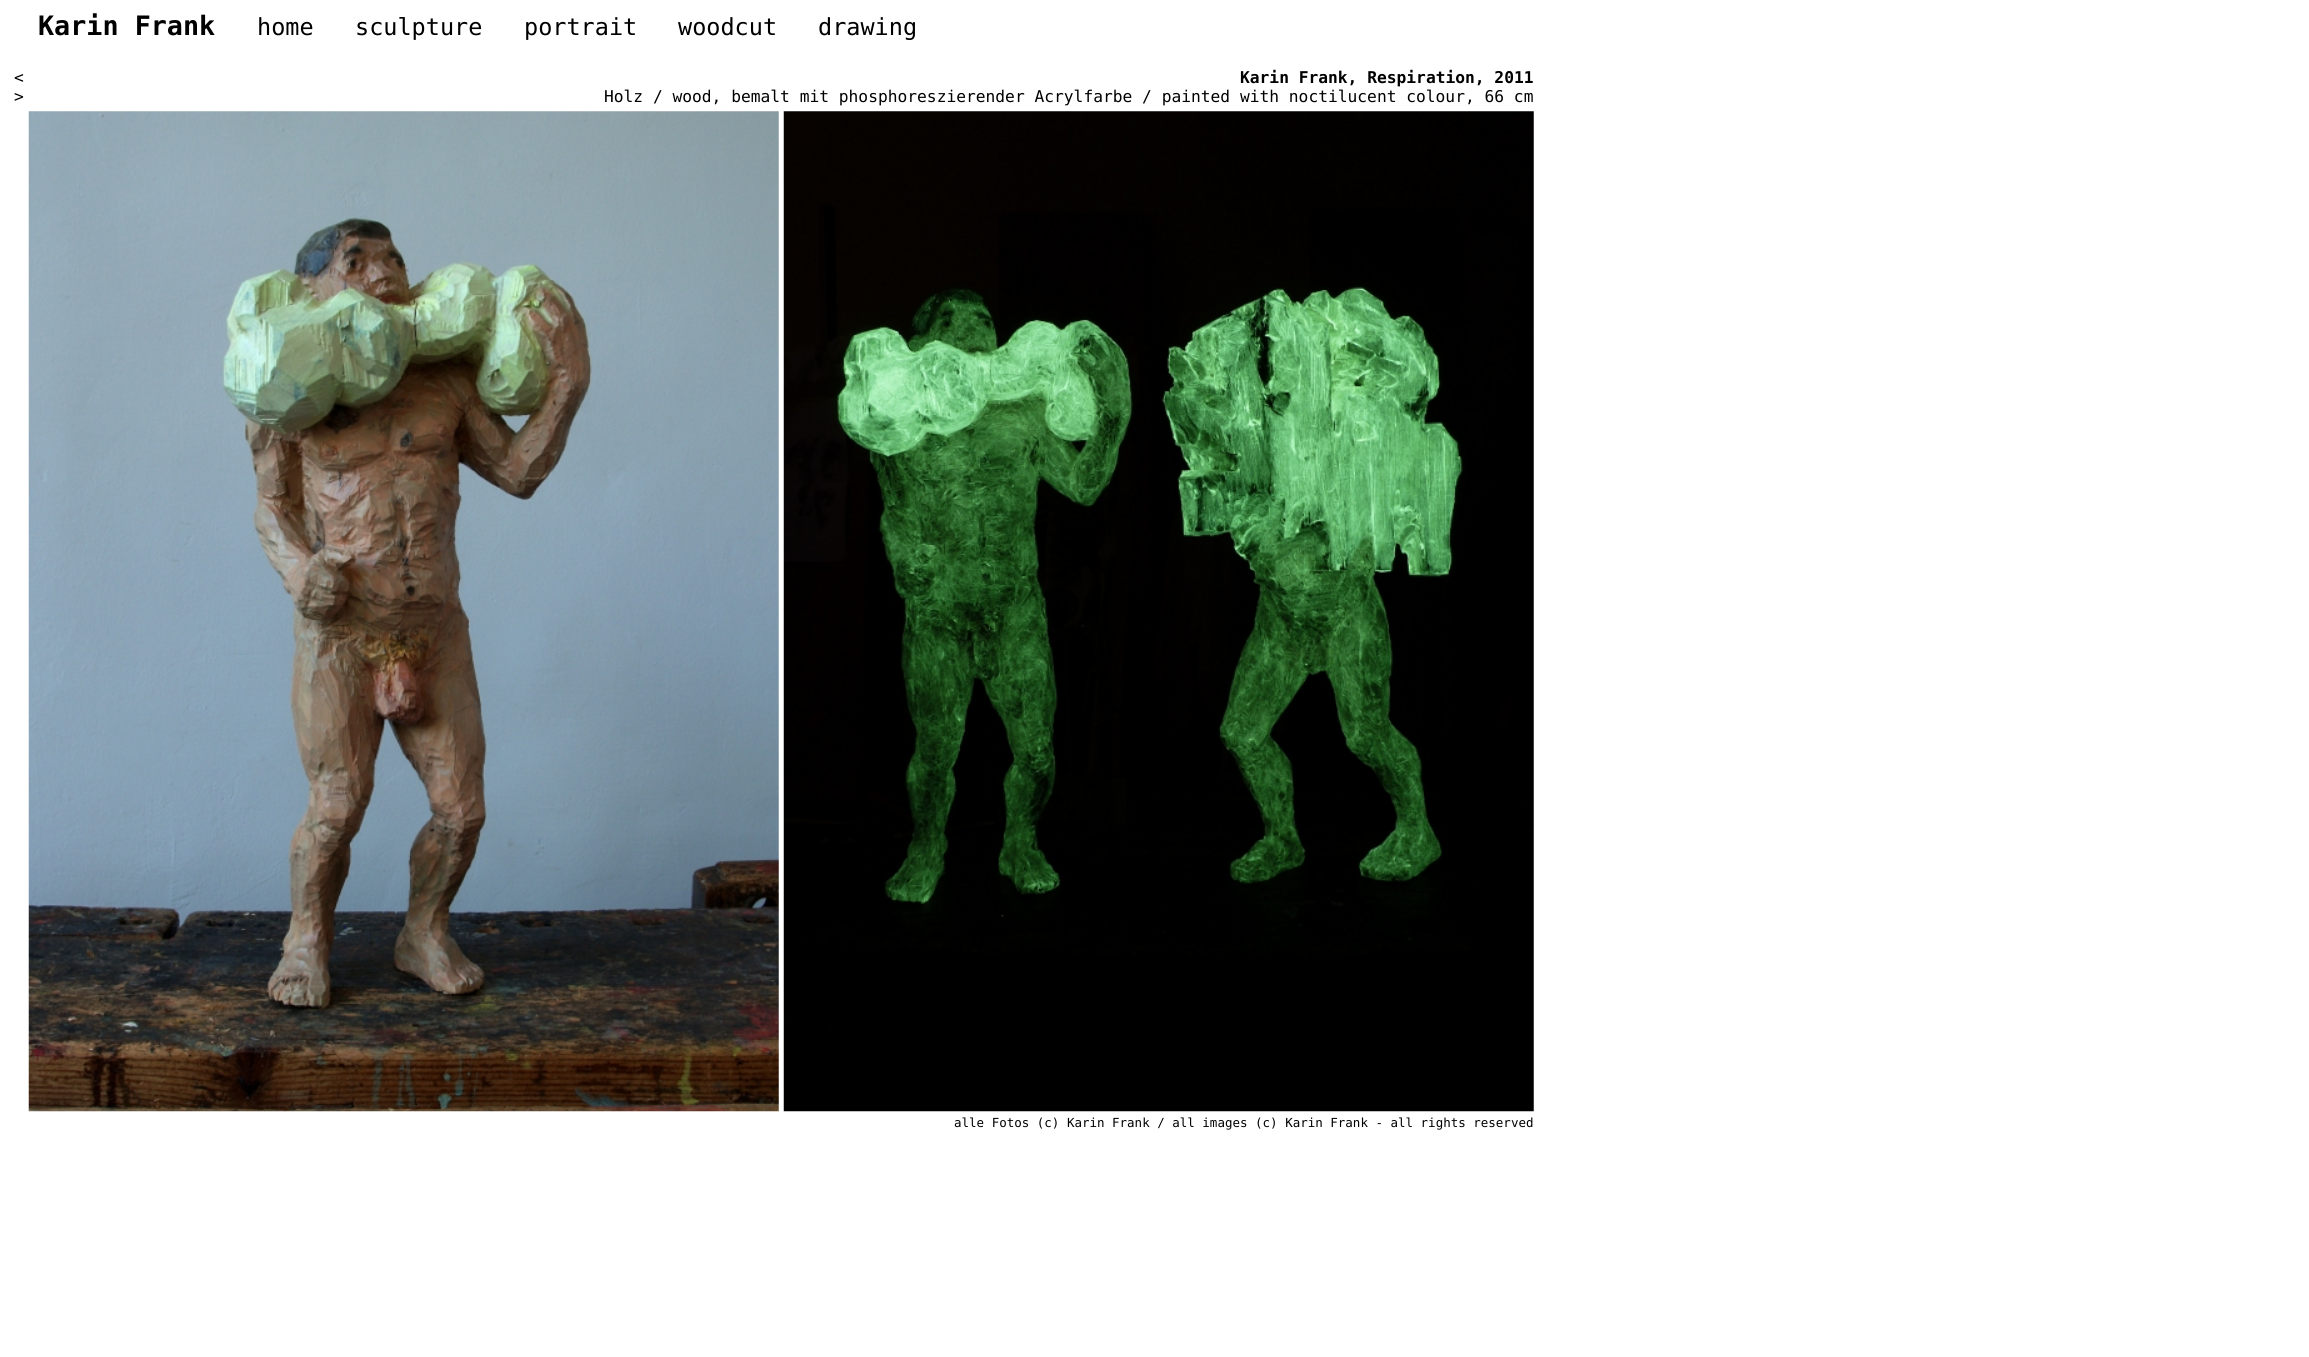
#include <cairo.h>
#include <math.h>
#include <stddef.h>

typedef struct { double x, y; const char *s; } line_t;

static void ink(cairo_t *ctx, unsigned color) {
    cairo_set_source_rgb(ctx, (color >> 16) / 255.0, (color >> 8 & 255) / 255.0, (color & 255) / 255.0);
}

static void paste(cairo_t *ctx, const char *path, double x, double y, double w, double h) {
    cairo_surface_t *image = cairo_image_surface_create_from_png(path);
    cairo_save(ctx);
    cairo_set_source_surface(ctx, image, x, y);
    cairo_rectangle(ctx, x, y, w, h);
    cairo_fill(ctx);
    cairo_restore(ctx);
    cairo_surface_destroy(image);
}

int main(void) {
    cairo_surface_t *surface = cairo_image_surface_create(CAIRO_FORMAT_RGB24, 2309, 1357);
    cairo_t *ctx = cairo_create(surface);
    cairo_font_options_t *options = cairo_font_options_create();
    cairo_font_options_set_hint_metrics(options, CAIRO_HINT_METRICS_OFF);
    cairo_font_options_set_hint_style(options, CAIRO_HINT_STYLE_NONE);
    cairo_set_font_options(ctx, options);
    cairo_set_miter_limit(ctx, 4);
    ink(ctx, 0xFFFFFF);
    cairo_paint(ctx);
    cairo_select_font_face(ctx, "DejaVu Sans Mono", CAIRO_FONT_SLANT_NORMAL, CAIRO_FONT_WEIGHT_BOLD);
    cairo_set_font_size(ctx, 26.75);
    ink(ctx, 0x000000);
    cairo_move_to(ctx, 38, 35);
    cairo_show_text(ctx, "Karin Frank");
    cairo_select_font_face(ctx, "DejaVu Sans Mono", CAIRO_FONT_SLANT_NORMAL, CAIRO_FONT_WEIGHT_NORMAL);
    cairo_set_font_size(ctx, 23.5);
    {
        static const line_t items[] = {
            {257, 35, "home"},
            {355, 35, "sculpture"},
            {524, 35, "portrait"},
            {678, 35, "woodcut"},
            {818, 35, "drawing"},
        };
        for (size_t i = 0; i < sizeof items / sizeof *items; i++) {
            cairo_move_to(ctx, items[i].x, items[i].y);
            cairo_show_text(ctx, items[i].s);
        }
    }
    cairo_set_font_size(ctx, 16.25);
    cairo_move_to(ctx, 14, 83);
    cairo_show_text(ctx, "<");
    cairo_move_to(ctx, 14, 102);
    cairo_show_text(ctx, ">");
    cairo_select_font_face(ctx, "DejaVu Sans Mono", CAIRO_FONT_SLANT_NORMAL, CAIRO_FONT_WEIGHT_BOLD);
    cairo_move_to(ctx, 1240, 83);
    cairo_show_text(ctx, "Karin Frank, Respiration, 2011");
    cairo_select_font_face(ctx, "DejaVu Sans Mono", CAIRO_FONT_SLANT_NORMAL, CAIRO_FONT_WEIGHT_NORMAL);
    cairo_move_to(ctx, 604, 102);
    cairo_show_text(ctx, "Holz / wood, bemalt mit phosphoreszierender Acrylfarbe / painted with noctilucent colour, 66 cm");
    paste(ctx, "media/1.png", 28, 111, 751, 1001);
    paste(ctx, "media/2.png", 783, 111, 751, 1001);
    cairo_set_font_size(ctx, 12.5);
    cairo_move_to(ctx, 954, 1127);
    cairo_show_text(ctx, "alle Fotos (c) Karin Frank / all images (c) Karin Frank - all rights reserved");
    cairo_surface_write_to_png(surface, "image.png");
    cairo_font_options_destroy(options);
    cairo_destroy(ctx);
    cairo_surface_destroy(surface);
    return 0;
}
